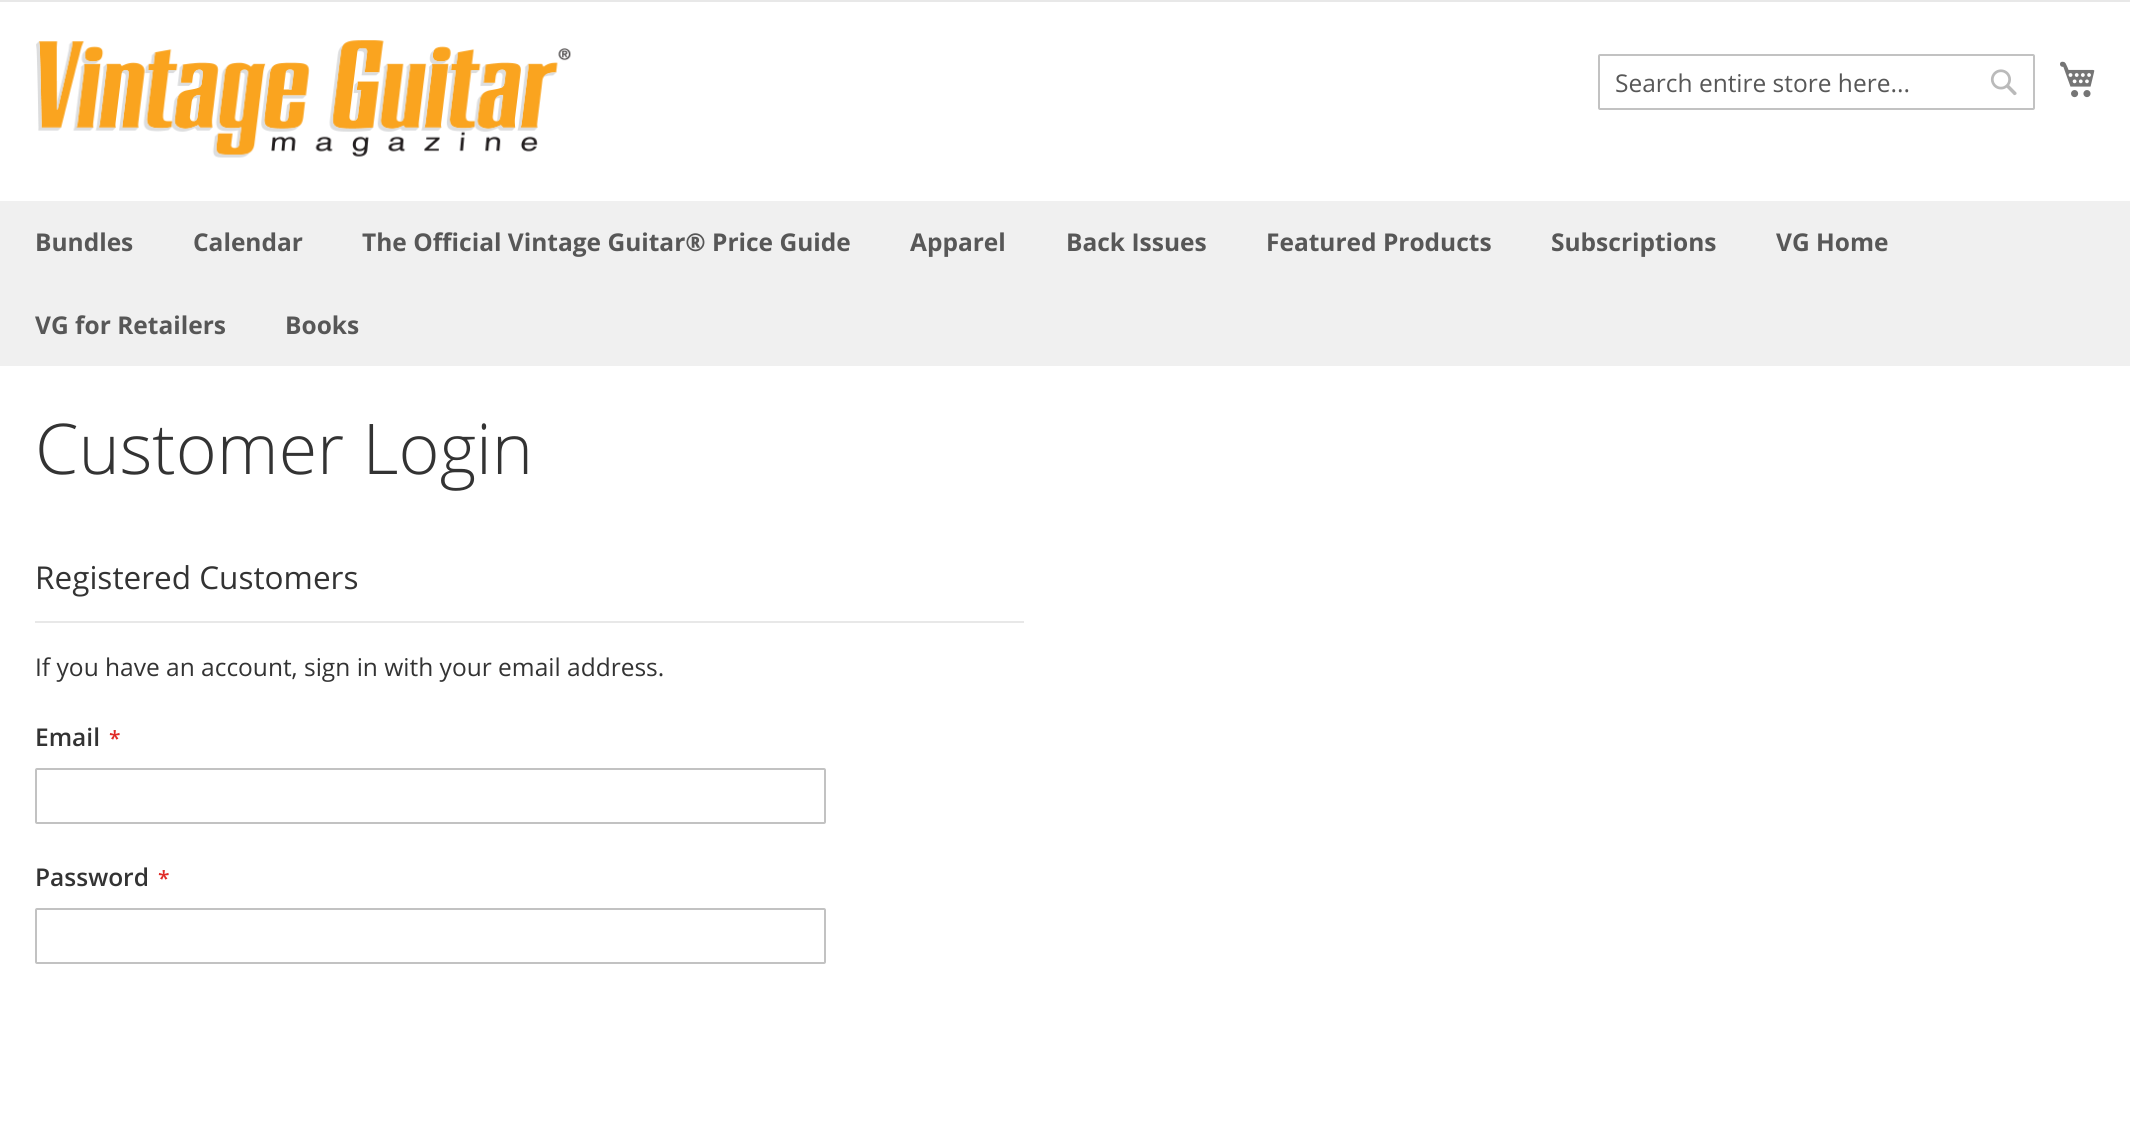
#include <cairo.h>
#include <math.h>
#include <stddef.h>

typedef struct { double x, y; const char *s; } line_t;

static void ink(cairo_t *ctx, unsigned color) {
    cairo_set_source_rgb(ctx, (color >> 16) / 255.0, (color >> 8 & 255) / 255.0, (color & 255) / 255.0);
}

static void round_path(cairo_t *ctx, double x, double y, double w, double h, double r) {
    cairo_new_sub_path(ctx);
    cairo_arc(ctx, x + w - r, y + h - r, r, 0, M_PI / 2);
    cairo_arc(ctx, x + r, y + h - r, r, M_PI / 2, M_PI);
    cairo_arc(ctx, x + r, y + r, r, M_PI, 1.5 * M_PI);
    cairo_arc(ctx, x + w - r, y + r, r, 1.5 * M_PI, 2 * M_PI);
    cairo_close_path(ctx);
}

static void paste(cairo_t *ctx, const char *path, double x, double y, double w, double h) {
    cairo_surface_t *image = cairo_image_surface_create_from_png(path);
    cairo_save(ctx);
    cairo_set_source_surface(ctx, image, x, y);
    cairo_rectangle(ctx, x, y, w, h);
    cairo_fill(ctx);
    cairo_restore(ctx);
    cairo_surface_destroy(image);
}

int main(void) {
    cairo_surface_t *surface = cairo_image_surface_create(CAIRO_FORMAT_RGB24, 2130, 1145);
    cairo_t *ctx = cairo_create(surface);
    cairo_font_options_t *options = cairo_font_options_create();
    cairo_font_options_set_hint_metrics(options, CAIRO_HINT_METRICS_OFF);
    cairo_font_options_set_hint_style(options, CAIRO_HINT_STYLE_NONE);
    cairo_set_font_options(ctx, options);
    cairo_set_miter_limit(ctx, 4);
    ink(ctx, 0xFFFFFF);
    cairo_paint(ctx);
    ink(ctx, 0xE8E8E8);
    cairo_rectangle(ctx, 0, 0, 2130, 2);
    cairo_fill(ctx);
    paste(ctx, "media/1.png", 36, 40, 535, 118);
    round_path(ctx, 1599, 55, 435, 54, 1);
    ink(ctx, 0xC2C2C2);
    cairo_stroke(ctx);
    cairo_select_font_face(ctx, "Open Sans", CAIRO_FONT_SLANT_NORMAL, CAIRO_FONT_WEIGHT_NORMAL);
    cairo_set_font_size(ctx, 24.5);
    ink(ctx, 0x575757);
    cairo_move_to(ctx, 1615, 92);
    cairo_show_text(ctx, "Search entire store here...");
    paste(ctx, "media/2.png", 1990, 69, 27, 27);
    paste(ctx, "media/3.png", 2060, 61, 35, 37);
    ink(ctx, 0xF0F0F0);
    cairo_rectangle(ctx, 0, 201, 2130, 165);
    cairo_fill(ctx);
    cairo_select_font_face(ctx, "Open Sans", CAIRO_FONT_SLANT_NORMAL, CAIRO_FONT_WEIGHT_BOLD);
    ink(ctx, 0x575757);
    {
        static const line_t items[] = {
            {35, 251, "Bundles"},
            {193, 251, "Calendar"},
            {362, 251, "The Official Vintage Guitar® Price Guide"},
            {910, 251, "Apparel"},
            {1066, 251, "Back Issues"},
            {1266, 251, "Featured Products"},
            {1551, 251, "Subscriptions"},
            {1776, 251, "VG Home"},
            {35, 334, "VG for Retailers"},
            {285, 334, "Books"},
        };
        for (size_t i = 0; i < sizeof items / sizeof *items; i++) {
            cairo_move_to(ctx, items[i].x, items[i].y);
            cairo_show_text(ctx, items[i].s);
        }
    }
    cairo_select_font_face(ctx, "Open Sans Light", CAIRO_FONT_SLANT_NORMAL, CAIRO_FONT_WEIGHT_NORMAL);
    cairo_set_font_size(ctx, 70);
    ink(ctx, 0x333333);
    cairo_move_to(ctx, 35, 474);
    cairo_show_text(ctx, "Customer Login");
    ink(ctx, 0xE8E8E8);
    cairo_rectangle(ctx, 35, 621, 989, 2);
    cairo_fill(ctx);
    cairo_select_font_face(ctx, "Open Sans", CAIRO_FONT_SLANT_NORMAL, CAIRO_FONT_WEIGHT_NORMAL);
    cairo_set_font_size(ctx, 31.5);
    ink(ctx, 0x333333);
    cairo_move_to(ctx, 35, 589);
    cairo_show_text(ctx, "Registered Customers");
    cairo_set_font_size(ctx, 24.5);
    cairo_move_to(ctx, 35, 676);
    cairo_show_text(ctx, "If you have an account, sign in with your email address.");
    cairo_select_font_face(ctx, "Open Sans SemiBold", CAIRO_FONT_SLANT_NORMAL, CAIRO_FONT_WEIGHT_NORMAL);
    cairo_move_to(ctx, 35, 746);
    cairo_show_text(ctx, "Email");
    cairo_set_font_size(ctx, 21);
    ink(ctx, 0xE02B27);
    cairo_move_to(ctx, 109, 746);
    cairo_show_text(ctx, "*");
    round_path(ctx, 36, 769, 789, 54, 1);
    ink(ctx, 0xC2C2C2);
    cairo_stroke(ctx);
    cairo_set_font_size(ctx, 24.5);
    ink(ctx, 0x333333);
    cairo_move_to(ctx, 35, 886);
    cairo_show_text(ctx, "Password");
    cairo_set_font_size(ctx, 21);
    ink(ctx, 0xE02B27);
    cairo_move_to(ctx, 158, 886);
    cairo_show_text(ctx, "*");
    round_path(ctx, 36, 909, 789, 54, 1);
    ink(ctx, 0xC2C2C2);
    cairo_stroke(ctx);
    cairo_surface_write_to_png(surface, "image.png");
    cairo_font_options_destroy(options);
    cairo_destroy(ctx);
    cairo_surface_destroy(surface);
    return 0;
}
